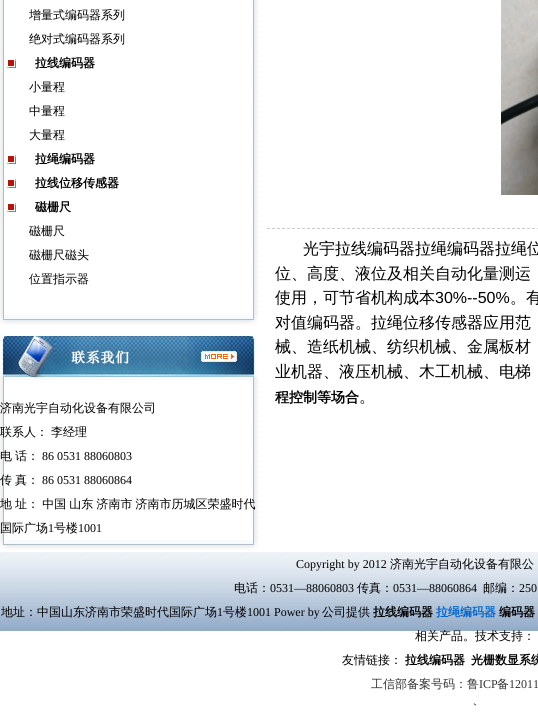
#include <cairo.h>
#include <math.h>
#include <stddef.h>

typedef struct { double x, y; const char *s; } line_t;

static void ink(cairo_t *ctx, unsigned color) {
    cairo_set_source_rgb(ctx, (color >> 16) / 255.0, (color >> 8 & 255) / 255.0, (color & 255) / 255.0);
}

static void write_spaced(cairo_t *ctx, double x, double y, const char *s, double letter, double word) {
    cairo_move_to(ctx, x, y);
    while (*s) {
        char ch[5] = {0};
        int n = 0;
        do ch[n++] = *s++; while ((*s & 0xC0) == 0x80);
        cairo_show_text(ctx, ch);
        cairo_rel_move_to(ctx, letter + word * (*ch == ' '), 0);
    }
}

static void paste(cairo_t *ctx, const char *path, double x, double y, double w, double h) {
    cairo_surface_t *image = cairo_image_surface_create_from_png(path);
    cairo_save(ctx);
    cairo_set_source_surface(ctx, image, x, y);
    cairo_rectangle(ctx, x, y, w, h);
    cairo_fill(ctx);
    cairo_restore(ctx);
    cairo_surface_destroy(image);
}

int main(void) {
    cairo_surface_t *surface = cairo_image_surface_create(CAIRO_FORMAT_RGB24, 538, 720);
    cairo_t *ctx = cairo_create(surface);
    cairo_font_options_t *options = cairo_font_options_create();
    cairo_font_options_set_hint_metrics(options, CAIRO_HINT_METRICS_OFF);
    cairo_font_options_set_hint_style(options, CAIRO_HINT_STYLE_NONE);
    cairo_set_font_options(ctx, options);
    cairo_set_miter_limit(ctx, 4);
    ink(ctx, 0xFFFFFF);
    cairo_paint(ctx);
    paste(ctx, "media/1.png", 0, 0, 259, 315);
    cairo_select_font_face(ctx, "WenQuanYi Zen Hei Medium", CAIRO_FONT_SLANT_NORMAL, CAIRO_FONT_WEIGHT_NORMAL);
    cairo_set_font_size(ctx, 12);
    ink(ctx, 0x000000);
    cairo_move_to(ctx, 29, 19);
    cairo_show_text(ctx, "增量式编码器系列");
    cairo_move_to(ctx, 29, 43);
    cairo_show_text(ctx, "绝对式编码器系列");
    paste(ctx, "media/2.png", 7, 59, 9, 9);
    cairo_select_font_face(ctx, "WenQuanYi Zen Hei", CAIRO_FONT_SLANT_NORMAL, CAIRO_FONT_WEIGHT_BOLD);
    cairo_move_to(ctx, 35, 67);
    cairo_show_text(ctx, "拉线编码器");
    cairo_select_font_face(ctx, "WenQuanYi Zen Hei Medium", CAIRO_FONT_SLANT_NORMAL, CAIRO_FONT_WEIGHT_NORMAL);
    {
        static const line_t items[] = {
            {29, 91, "小量程"},
            {29, 115, "中量程"},
            {29, 139, "大量程"},
        };
        for (size_t i = 0; i < sizeof items / sizeof *items; i++) {
            cairo_move_to(ctx, items[i].x, items[i].y);
            cairo_show_text(ctx, items[i].s);
        }
    }
    paste(ctx, "media/2.png", 7, 155, 9, 9);
    cairo_select_font_face(ctx, "WenQuanYi Zen Hei", CAIRO_FONT_SLANT_NORMAL, CAIRO_FONT_WEIGHT_BOLD);
    cairo_move_to(ctx, 35, 163);
    cairo_show_text(ctx, "拉绳编码器");
    paste(ctx, "media/2.png", 7, 179, 9, 9);
    cairo_move_to(ctx, 35, 187);
    cairo_show_text(ctx, "拉线位移传感器");
    paste(ctx, "media/2.png", 7, 203, 9, 9);
    cairo_move_to(ctx, 35, 211);
    cairo_show_text(ctx, "磁栅尺");
    cairo_select_font_face(ctx, "WenQuanYi Zen Hei Medium", CAIRO_FONT_SLANT_NORMAL, CAIRO_FONT_WEIGHT_NORMAL);
    {
        static const line_t items[] = {
            {29, 235, "磁栅尺"},
            {29, 259, "磁栅尺磁头"},
            {29, 283, "位置指示器"},
        };
        for (size_t i = 0; i < sizeof items / sizeof *items; i++) {
            cairo_move_to(ctx, items[i].x, items[i].y);
            cairo_show_text(ctx, items[i].s);
        }
    }
    paste(ctx, "media/3.png", 0, 315, 258, 10);
    paste(ctx, "media/4.png", 0, 335, 258, 45);
    paste(ctx, "media/5.png", 0, 380, 259, 160);
    {
        static const line_t items[] = {
            {0, 412, "济南光宇自动化设备有限公司"},
            {0, 436, "联系人："},
            {51, 436, "李经理"},
            {0, 460, "电"},
            {15, 460, "话："},
        };
        for (size_t i = 0; i < sizeof items / sizeof *items; i++) {
            cairo_move_to(ctx, items[i].x, items[i].y);
            cairo_show_text(ctx, items[i].s);
        }
    }
    cairo_select_font_face(ctx, "Liberation Serif", CAIRO_FONT_SLANT_NORMAL, CAIRO_FONT_WEIGHT_NORMAL);
    cairo_move_to(ctx, 42, 460);
    cairo_show_text(ctx, "86 0531 88060803");
    cairo_select_font_face(ctx, "WenQuanYi Zen Hei Medium", CAIRO_FONT_SLANT_NORMAL, CAIRO_FONT_WEIGHT_NORMAL);
    cairo_move_to(ctx, 0, 484);
    cairo_show_text(ctx, "传");
    cairo_move_to(ctx, 15, 484);
    cairo_show_text(ctx, "真：");
    cairo_select_font_face(ctx, "Liberation Serif", CAIRO_FONT_SLANT_NORMAL, CAIRO_FONT_WEIGHT_NORMAL);
    cairo_move_to(ctx, 42, 484);
    cairo_show_text(ctx, "86 0531 88060864");
    cairo_select_font_face(ctx, "WenQuanYi Zen Hei Medium", CAIRO_FONT_SLANT_NORMAL, CAIRO_FONT_WEIGHT_NORMAL);
    write_spaced(ctx, 0, 508, "地 址： 中国 山东 济南市 济南市历城区荣盛时代", 0, -0.5);
    cairo_move_to(ctx, 0, 532);
    cairo_show_text(ctx, "国际广场");
    cairo_select_font_face(ctx, "Liberation Serif", CAIRO_FONT_SLANT_NORMAL, CAIRO_FONT_WEIGHT_NORMAL);
    cairo_move_to(ctx, 48, 532);
    cairo_show_text(ctx, "1");
    cairo_select_font_face(ctx, "WenQuanYi Zen Hei Medium", CAIRO_FONT_SLANT_NORMAL, CAIRO_FONT_WEIGHT_NORMAL);
    cairo_move_to(ctx, 54, 532);
    cairo_show_text(ctx, "号楼");
    cairo_select_font_face(ctx, "Liberation Serif", CAIRO_FONT_SLANT_NORMAL, CAIRO_FONT_WEIGHT_NORMAL);
    cairo_move_to(ctx, 78, 532);
    cairo_show_text(ctx, "1001");
    paste(ctx, "media/3.png", 0, 540, 258, 10);
    paste(ctx, "media/6.png", 501, 0, 37, 195);
    cairo_new_path(ctx);
    cairo_move_to(ctx, 267, 228.5);
    cairo_line_to(ctx, 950, 228.5);
    ink(ctx, 0xCCCCCC);
    cairo_set_line_width(ctx, 1);
    cairo_set_dash(ctx, (double[]){3, 2}, 2, 0);
    cairo_stroke(ctx);
    cairo_select_font_face(ctx, "WenQuanYi Zen Hei Medium", CAIRO_FONT_SLANT_NORMAL, CAIRO_FONT_WEIGHT_NORMAL);
    cairo_set_font_size(ctx, 16);
    ink(ctx, 0x000000);
    {
        static const line_t items[] = {
            {303, 254, "光宇拉线编码器拉绳编码器拉绳位"},
            {275, 279, "位、高度、液位及相关自动化量测运"},
            {275, 303, "使用，可节省机构成本"},
        };
        for (size_t i = 0; i < sizeof items / sizeof *items; i++) {
            cairo_move_to(ctx, items[i].x, items[i].y);
            cairo_show_text(ctx, items[i].s);
        }
    }
    cairo_select_font_face(ctx, "Liberation Sans", CAIRO_FONT_SLANT_NORMAL, CAIRO_FONT_WEIGHT_NORMAL);
    cairo_move_to(ctx, 435, 303);
    cairo_show_text(ctx, "30%--50%");
    cairo_select_font_face(ctx, "WenQuanYi Zen Hei Medium", CAIRO_FONT_SLANT_NORMAL, CAIRO_FONT_WEIGHT_NORMAL);
    {
        static const line_t items[] = {
            {510, 303, "。有"},
            {275, 328, "对值编码器。拉绳位移传感器应用范"},
            {275, 352, "械、造纸机械、纺织机械、金属板材"},
            {275, 377, "业机器、液压机械、木工机械、电梯"},
        };
        for (size_t i = 0; i < sizeof items / sizeof *items; i++) {
            cairo_move_to(ctx, items[i].x, items[i].y);
            cairo_show_text(ctx, items[i].s);
        }
    }
    cairo_select_font_face(ctx, "WenQuanYi Zen Hei", CAIRO_FONT_SLANT_NORMAL, CAIRO_FONT_WEIGHT_BOLD);
    cairo_set_font_size(ctx, 14);
    cairo_move_to(ctx, 275, 402);
    cairo_show_text(ctx, "程控制等场合");
    cairo_select_font_face(ctx, "WenQuanYi Zen Hei Medium", CAIRO_FONT_SLANT_NORMAL, CAIRO_FONT_WEIGHT_NORMAL);
    cairo_set_font_size(ctx, 16);
    cairo_move_to(ctx, 359, 402);
    cairo_show_text(ctx, "。");
    paste(ctx, "media/7.png", 0, 552, 538, 79);
    cairo_select_font_face(ctx, "Liberation Serif", CAIRO_FONT_SLANT_NORMAL, CAIRO_FONT_WEIGHT_NORMAL);
    cairo_set_font_size(ctx, 12);
    cairo_move_to(ctx, 296, 568);
    cairo_show_text(ctx, "Copyright by 2012");
    cairo_select_font_face(ctx, "WenQuanYi Zen Hei Medium", CAIRO_FONT_SLANT_NORMAL, CAIRO_FONT_WEIGHT_NORMAL);
    cairo_move_to(ctx, 390, 568);
    cairo_show_text(ctx, "济南光宇自动化设备有限公");
    cairo_move_to(ctx, 234, 592);
    cairo_show_text(ctx, "电话：");
    cairo_select_font_face(ctx, "Liberation Serif", CAIRO_FONT_SLANT_NORMAL, CAIRO_FONT_WEIGHT_NORMAL);
    cairo_move_to(ctx, 270, 592);
    cairo_show_text(ctx, "0531—88060803");
    cairo_select_font_face(ctx, "WenQuanYi Zen Hei Medium", CAIRO_FONT_SLANT_NORMAL, CAIRO_FONT_WEIGHT_NORMAL);
    cairo_move_to(ctx, 357, 592);
    cairo_show_text(ctx, "传真：");
    cairo_select_font_face(ctx, "Liberation Serif", CAIRO_FONT_SLANT_NORMAL, CAIRO_FONT_WEIGHT_NORMAL);
    cairo_move_to(ctx, 393, 592);
    cairo_show_text(ctx, "0531—88060864");
    cairo_select_font_face(ctx, "WenQuanYi Zen Hei Medium", CAIRO_FONT_SLANT_NORMAL, CAIRO_FONT_WEIGHT_NORMAL);
    cairo_move_to(ctx, 483, 592);
    cairo_show_text(ctx, "邮编：");
    cairo_select_font_face(ctx, "Liberation Serif", CAIRO_FONT_SLANT_NORMAL, CAIRO_FONT_WEIGHT_NORMAL);
    cairo_move_to(ctx, 519, 592);
    cairo_show_text(ctx, "250");
    cairo_select_font_face(ctx, "WenQuanYi Zen Hei Medium", CAIRO_FONT_SLANT_NORMAL, CAIRO_FONT_WEIGHT_NORMAL);
    cairo_move_to(ctx, 1, 616);
    cairo_show_text(ctx, "地址：中国山东济南市荣盛时代国际广场");
    cairo_select_font_face(ctx, "Liberation Serif", CAIRO_FONT_SLANT_NORMAL, CAIRO_FONT_WEIGHT_NORMAL);
    cairo_move_to(ctx, 217, 616);
    cairo_show_text(ctx, "1");
    cairo_select_font_face(ctx, "WenQuanYi Zen Hei Medium", CAIRO_FONT_SLANT_NORMAL, CAIRO_FONT_WEIGHT_NORMAL);
    cairo_move_to(ctx, 223, 616);
    cairo_show_text(ctx, "号楼");
    cairo_select_font_face(ctx, "Liberation Serif", CAIRO_FONT_SLANT_NORMAL, CAIRO_FONT_WEIGHT_NORMAL);
    cairo_move_to(ctx, 247, 616);
    cairo_show_text(ctx, "1001 Power by");
    cairo_select_font_face(ctx, "WenQuanYi Zen Hei Medium", CAIRO_FONT_SLANT_NORMAL, CAIRO_FONT_WEIGHT_NORMAL);
    cairo_move_to(ctx, 322, 616);
    cairo_show_text(ctx, "公司提供");
    cairo_select_font_face(ctx, "WenQuanYi Zen Hei", CAIRO_FONT_SLANT_NORMAL, CAIRO_FONT_WEIGHT_BOLD);
    cairo_move_to(ctx, 373, 616);
    cairo_show_text(ctx, "拉线编码器");
    ink(ctx, 0x0066CC);
    cairo_move_to(ctx, 436, 616);
    cairo_show_text(ctx, "拉绳编码器");
    ink(ctx, 0x000000);
    cairo_move_to(ctx, 499, 616);
    cairo_show_text(ctx, "编码器");
    cairo_select_font_face(ctx, "WenQuanYi Zen Hei Medium", CAIRO_FONT_SLANT_NORMAL, CAIRO_FONT_WEIGHT_NORMAL);
    cairo_move_to(ctx, 415, 640);
    cairo_show_text(ctx, "相关产品。技术支持：");
    cairo_move_to(ctx, 342, 664);
    cairo_show_text(ctx, "友情链接：");
    cairo_select_font_face(ctx, "WenQuanYi Zen Hei", CAIRO_FONT_SLANT_NORMAL, CAIRO_FONT_WEIGHT_BOLD);
    cairo_move_to(ctx, 405, 664);
    cairo_show_text(ctx, "拉线编码器");
    cairo_move_to(ctx, 471, 664);
    cairo_show_text(ctx, "光栅数显系统");
    cairo_select_font_face(ctx, "WenQuanYi Zen Hei Medium", CAIRO_FONT_SLANT_NORMAL, CAIRO_FONT_WEIGHT_NORMAL);
    ink(ctx, 0x333333);
    cairo_move_to(ctx, 371, 688);
    cairo_show_text(ctx, "工信部备案号码：鲁");
    cairo_select_font_face(ctx, "Liberation Serif", CAIRO_FONT_SLANT_NORMAL, CAIRO_FONT_WEIGHT_NORMAL);
    cairo_move_to(ctx, 479, 688);
    cairo_show_text(ctx, "ICP");
    cairo_select_font_face(ctx, "WenQuanYi Zen Hei Medium", CAIRO_FONT_SLANT_NORMAL, CAIRO_FONT_WEIGHT_NORMAL);
    cairo_move_to(ctx, 497, 688);
    cairo_show_text(ctx, "备");
    cairo_select_font_face(ctx, "Liberation Serif", CAIRO_FONT_SLANT_NORMAL, CAIRO_FONT_WEIGHT_NORMAL);
    cairo_move_to(ctx, 509, 688);
    cairo_show_text(ctx, "12011");
    ink(ctx, 0x000000);
    cairo_move_to(ctx, 473, 712);
    cairo_show_text(ctx, "`");
    cairo_surface_write_to_png(surface, "image.png");
    cairo_font_options_destroy(options);
    cairo_destroy(ctx);
    cairo_surface_destroy(surface);
    return 0;
}
